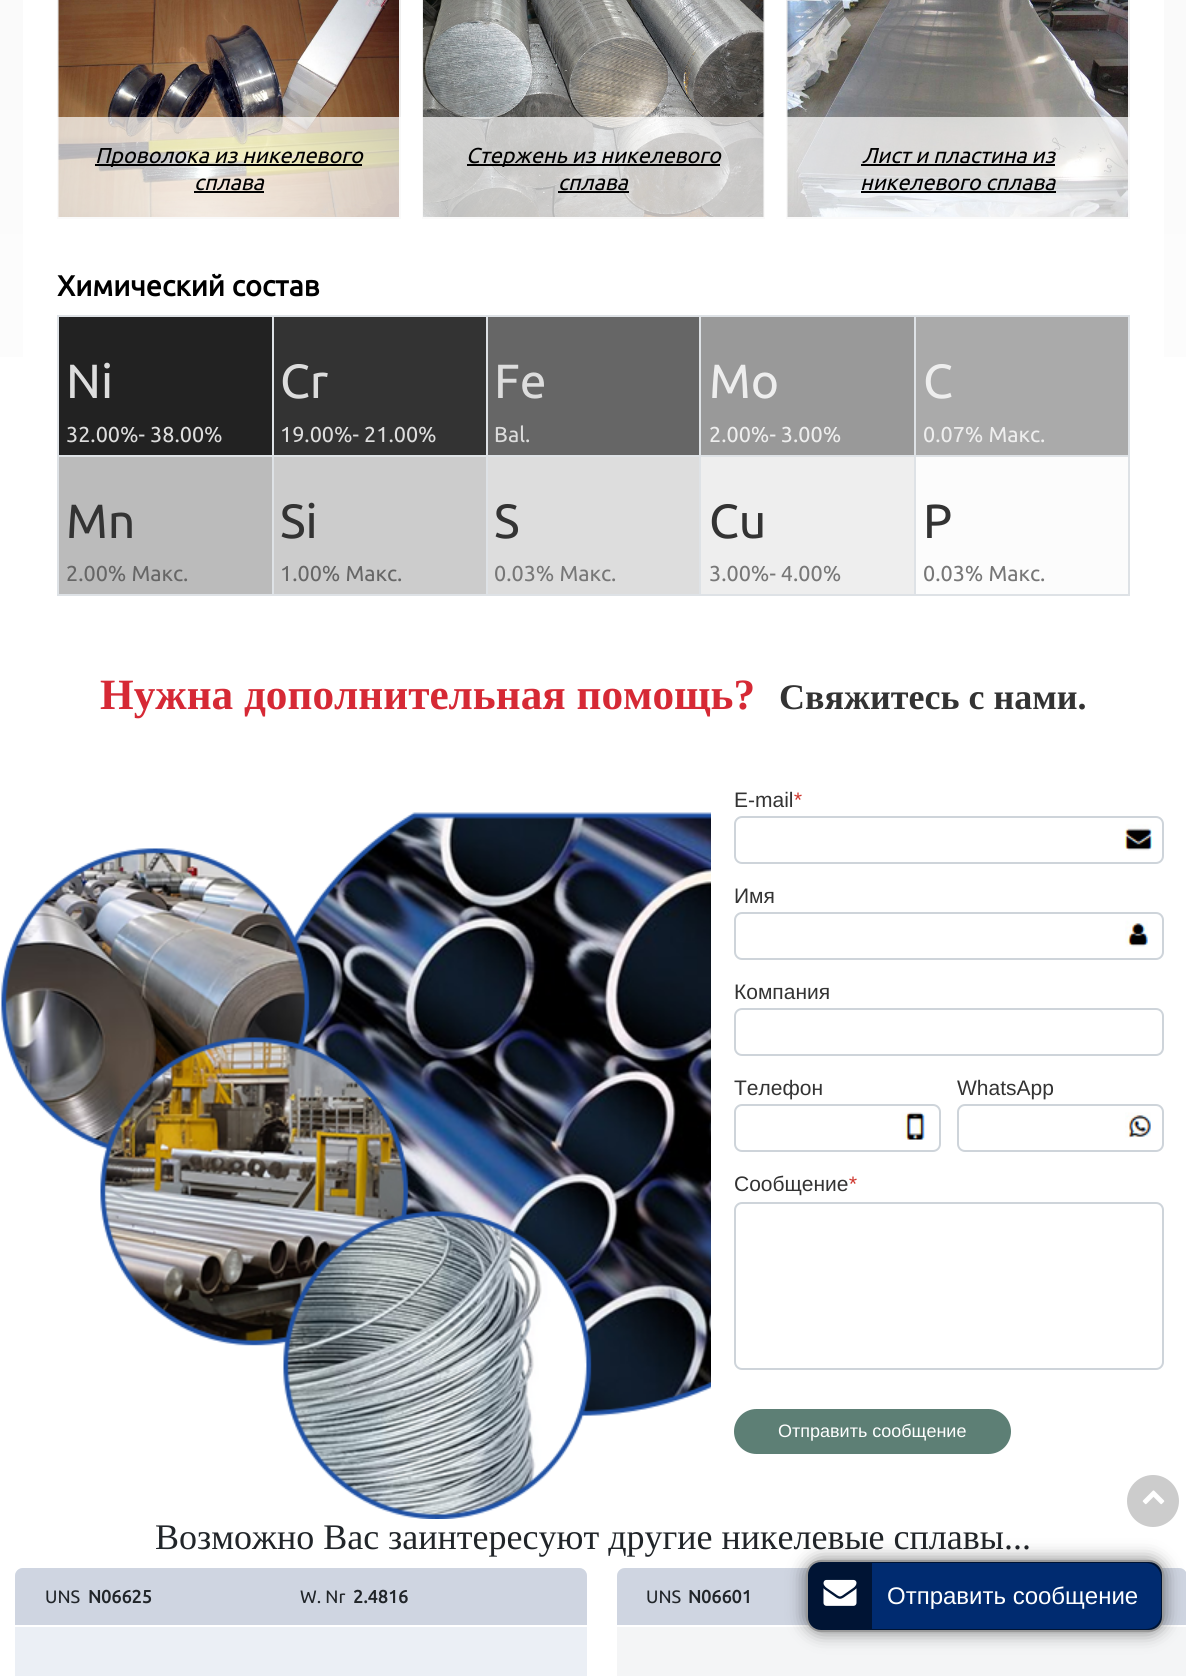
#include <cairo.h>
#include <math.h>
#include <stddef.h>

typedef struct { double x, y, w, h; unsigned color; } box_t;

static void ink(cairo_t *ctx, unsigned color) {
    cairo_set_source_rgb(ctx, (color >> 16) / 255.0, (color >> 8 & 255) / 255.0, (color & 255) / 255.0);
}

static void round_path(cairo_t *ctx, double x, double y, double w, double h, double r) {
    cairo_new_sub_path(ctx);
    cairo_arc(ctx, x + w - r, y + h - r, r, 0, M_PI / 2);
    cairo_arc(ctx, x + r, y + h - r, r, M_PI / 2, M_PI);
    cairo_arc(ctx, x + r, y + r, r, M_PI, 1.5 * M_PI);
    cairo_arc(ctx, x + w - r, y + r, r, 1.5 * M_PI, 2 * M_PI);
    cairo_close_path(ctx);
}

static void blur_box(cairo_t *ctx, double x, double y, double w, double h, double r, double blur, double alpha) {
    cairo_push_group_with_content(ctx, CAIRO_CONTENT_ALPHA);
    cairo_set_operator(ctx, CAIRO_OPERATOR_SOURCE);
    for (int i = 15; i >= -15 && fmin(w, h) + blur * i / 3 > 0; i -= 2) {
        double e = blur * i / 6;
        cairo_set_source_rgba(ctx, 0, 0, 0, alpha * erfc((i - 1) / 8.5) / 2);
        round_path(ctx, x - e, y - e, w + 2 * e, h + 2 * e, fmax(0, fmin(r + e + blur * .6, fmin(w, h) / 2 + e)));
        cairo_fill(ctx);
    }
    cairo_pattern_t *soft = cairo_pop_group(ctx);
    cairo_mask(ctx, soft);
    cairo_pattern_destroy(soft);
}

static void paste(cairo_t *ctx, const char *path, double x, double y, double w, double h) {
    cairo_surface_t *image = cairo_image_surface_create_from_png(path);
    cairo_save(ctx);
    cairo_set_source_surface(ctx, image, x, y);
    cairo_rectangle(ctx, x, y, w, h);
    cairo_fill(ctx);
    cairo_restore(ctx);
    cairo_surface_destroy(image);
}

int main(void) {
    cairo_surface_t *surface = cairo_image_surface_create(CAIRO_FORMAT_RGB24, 1186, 1676);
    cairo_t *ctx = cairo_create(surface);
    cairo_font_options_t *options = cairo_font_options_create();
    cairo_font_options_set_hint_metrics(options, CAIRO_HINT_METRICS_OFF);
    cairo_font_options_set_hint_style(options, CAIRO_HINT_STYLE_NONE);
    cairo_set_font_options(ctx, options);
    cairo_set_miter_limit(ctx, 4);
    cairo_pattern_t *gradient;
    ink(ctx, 0xFFFFFF);
    cairo_paint(ctx);
    gradient = cairo_pattern_create_linear(593, -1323, 593, 668);
    cairo_pattern_add_color_stop_rgba(gradient, 0, 0.937, 0.937, 0.937, 1);
    cairo_pattern_add_color_stop_rgba(gradient, 1, 1, 1, 1, 1);
    cairo_set_source(ctx, gradient);
    cairo_pattern_destroy(gradient);
    cairo_rectangle(ctx, 0, 0, 1186, 357);
    cairo_fill(ctx);
    ink(ctx, 0xFFFFFF);
    cairo_rectangle(ctx, 23, 0, 1141, 357);
    cairo_fill(ctx);
    cairo_rectangle(ctx, 58, -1, 342, 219);
    ink(ctx, 0xEEEEEE);
    cairo_stroke(ctx);
    paste(ctx, "media/1.png", 58, 0, 341, 217);
    cairo_set_source_rgba(ctx, 1, 1, 1, 0.7);
    cairo_rectangle(ctx, 57, 117, 344, 102);
    cairo_fill(ctx);
    ink(ctx, 0x000000);
    cairo_rectangle(ctx, 95, 164, 267, 2);
    cairo_fill(ctx);
    cairo_select_font_face(ctx, "Ubuntu", CAIRO_FONT_SLANT_ITALIC, CAIRO_FONT_WEIGHT_NORMAL);
    cairo_set_font_size(ctx, 21.6);
    cairo_move_to(ctx, 95, 163);
    cairo_show_text(ctx, "Проволока из никелевого");
    cairo_move_to(ctx, 194, 190);
    cairo_show_text(ctx, "сплава");
    cairo_rectangle(ctx, 194, 191, 70, 2);
    cairo_fill(ctx);
    cairo_rectangle(ctx, 423, -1, 341, 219);
    ink(ctx, 0xEEEEEE);
    cairo_stroke(ctx);
    paste(ctx, "media/2.png", 423, 0, 341, 217);
    cairo_set_source_rgba(ctx, 1, 1, 1, 0.7);
    cairo_rectangle(ctx, 422, 117, 343, 102);
    cairo_fill(ctx);
    ink(ctx, 0x000000);
    cairo_rectangle(ctx, 467, 164, 253, 2);
    cairo_fill(ctx);
    cairo_move_to(ctx, 466, 163);
    cairo_show_text(ctx, "Стержень из никелевого");
    cairo_move_to(ctx, 558, 190);
    cairo_show_text(ctx, "сплава");
    cairo_rectangle(ctx, 558, 191, 71, 2);
    cairo_fill(ctx);
    cairo_rectangle(ctx, 787, -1, 342, 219);
    ink(ctx, 0xEEEEEE);
    cairo_stroke(ctx);
    paste(ctx, "media/3.png", 787, 0, 341, 217);
    cairo_set_source_rgba(ctx, 1, 1, 1, 0.7);
    cairo_rectangle(ctx, 786, 117, 344, 102);
    cairo_fill(ctx);
    ink(ctx, 0x000000);
    cairo_move_to(ctx, 862, 163);
    cairo_show_text(ctx, "Лист и пластина из");
    cairo_rectangle(ctx, 861, 164, 194, 2);
    cairo_fill(ctx);
    cairo_move_to(ctx, 860, 190);
    cairo_show_text(ctx, "никелевого сплава");
    cairo_rectangle(ctx, 861, 191, 195, 2);
    cairo_fill(ctx);
    cairo_select_font_face(ctx, "Ubuntu", CAIRO_FONT_SLANT_NORMAL, CAIRO_FONT_WEIGHT_BOLD);
    cairo_set_font_size(ctx, 28.75);
    cairo_move_to(ctx, 57, 296);
    cairo_show_text(ctx, "Химический состав");
    {
        static const box_t items[] = {
            {59, 317, 213, 138, 0x222222},
            {914, 315, 216, 2, 0xDEE2E6},
            {914, 455, 216, 2, 0xDEE2E6},
            {1128, 455, 2, 141, 0xDEE2E6},
            {914, 594, 216, 2, 0xDEE2E6},
            {914, 455, 2, 141, 0xDEE2E6},
            {699, 455, 216, 2, 0xDEE2E6},
            {914, 315, 2, 141, 0xDEE2E6},
            {699, 315, 216, 2, 0xDEE2E6},
            {699, 594, 216, 2, 0xDEE2E6},
            {699, 455, 2, 141, 0xDEE2E6},
            {486, 455, 215, 2, 0xDEE2E6},
            {699, 315, 2, 141, 0xDEE2E6},
            {486, 315, 215, 2, 0xDEE2E6},
            {486, 594, 215, 2, 0xDEE2E6},
            {486, 455, 2, 141, 0xDEE2E6},
            {272, 455, 216, 2, 0xDEE2E6},
            {486, 315, 2, 141, 0xDEE2E6},
            {272, 315, 216, 2, 0xDEE2E6},
            {272, 594, 216, 2, 0xDEE2E6},
            {272, 455, 2, 141, 0xDEE2E6},
            {57, 455, 216, 2, 0xDEE2E6},
            {272, 315, 2, 141, 0xDEE2E6},
            {57, 315, 216, 2, 0xDEE2E6},
            {57, 594, 216, 2, 0xDEE2E6},
            {57, 455, 2, 141, 0xDEE2E6},
            {57, 315, 2, 141, 0xDEE2E6},
        };
        for (size_t i = 0; i < sizeof items / sizeof *items; i++) {
            ink(ctx, items[i].color);
            cairo_rectangle(ctx, items[i].x, items[i].y, items[i].w, items[i].h);
            cairo_fill(ctx);
        }
    }
    cairo_select_font_face(ctx, "Ubuntu", CAIRO_FONT_SLANT_NORMAL, CAIRO_FONT_WEIGHT_NORMAL);
    cairo_set_font_size(ctx, 48);
    ink(ctx, 0xDDDDDD);
    cairo_move_to(ctx, 66, 398);
    cairo_show_text(ctx, "Ni");
    cairo_set_font_size(ctx, 21.6);
    cairo_move_to(ctx, 66, 442);
    cairo_show_text(ctx, "32.00%- 38.00%");
    ink(ctx, 0x333333);
    cairo_rectangle(ctx, 274, 317, 212, 138);
    cairo_fill(ctx);
    cairo_set_font_size(ctx, 48);
    ink(ctx, 0xDDDDDD);
    cairo_move_to(ctx, 280, 398);
    cairo_show_text(ctx, "Cr");
    cairo_set_font_size(ctx, 21.6);
    cairo_move_to(ctx, 280, 442);
    cairo_show_text(ctx, "19.00%- 21.00%");
    ink(ctx, 0x666666);
    cairo_rectangle(ctx, 488, 317, 211, 138);
    cairo_fill(ctx);
    cairo_set_font_size(ctx, 48);
    ink(ctx, 0xDDDDDD);
    cairo_move_to(ctx, 494, 398);
    cairo_show_text(ctx, "Fe");
    cairo_set_font_size(ctx, 21.6);
    cairo_move_to(ctx, 494, 442);
    cairo_show_text(ctx, "Bal.");
    ink(ctx, 0x999999);
    cairo_rectangle(ctx, 701, 317, 213, 138);
    cairo_fill(ctx);
    cairo_set_font_size(ctx, 48);
    ink(ctx, 0xEEEEEE);
    cairo_move_to(ctx, 709, 398);
    cairo_show_text(ctx, "Mo");
    cairo_set_font_size(ctx, 21.6);
    cairo_move_to(ctx, 709, 442);
    cairo_show_text(ctx, "2.00%- 3.00%");
    ink(ctx, 0xAAAAAA);
    cairo_rectangle(ctx, 916, 317, 212, 138);
    cairo_fill(ctx);
    ink(ctx, 0xDEE2E6);
    cairo_rectangle(ctx, 1128, 315, 2, 141);
    cairo_fill(ctx);
    cairo_set_font_size(ctx, 48);
    ink(ctx, 0xEEEEEE);
    cairo_move_to(ctx, 923, 398);
    cairo_show_text(ctx, "C");
    cairo_set_font_size(ctx, 21.6);
    cairo_move_to(ctx, 923, 442);
    cairo_show_text(ctx, "0.07% Макс.");
    ink(ctx, 0xBBBBBB);
    cairo_rectangle(ctx, 59, 457, 213, 137);
    cairo_fill(ctx);
    cairo_set_font_size(ctx, 48);
    ink(ctx, 0x333333);
    cairo_move_to(ctx, 66, 538);
    cairo_show_text(ctx, "Mn");
    cairo_set_font_size(ctx, 21.6);
    ink(ctx, 0x666666);
    cairo_move_to(ctx, 66, 581);
    cairo_show_text(ctx, "2.00% Макс.");
    ink(ctx, 0xCCCCCC);
    cairo_rectangle(ctx, 274, 457, 212, 137);
    cairo_fill(ctx);
    cairo_set_font_size(ctx, 48);
    ink(ctx, 0x333333);
    cairo_move_to(ctx, 280, 538);
    cairo_show_text(ctx, "Si");
    cairo_set_font_size(ctx, 21.6);
    ink(ctx, 0x666666);
    cairo_move_to(ctx, 280, 581);
    cairo_show_text(ctx, "1.00% Макс.");
    ink(ctx, 0xDDDDDD);
    cairo_rectangle(ctx, 488, 457, 211, 137);
    cairo_fill(ctx);
    cairo_set_font_size(ctx, 48);
    ink(ctx, 0x333333);
    cairo_move_to(ctx, 494, 538);
    cairo_show_text(ctx, "S");
    cairo_set_font_size(ctx, 21.6);
    ink(ctx, 0x777777);
    cairo_move_to(ctx, 494, 581);
    cairo_show_text(ctx, "0.03% Макс.");
    ink(ctx, 0xEEEEEE);
    cairo_rectangle(ctx, 701, 457, 213, 137);
    cairo_fill(ctx);
    cairo_set_font_size(ctx, 48);
    ink(ctx, 0x333333);
    cairo_move_to(ctx, 709, 538);
    cairo_show_text(ctx, "Cu");
    cairo_set_font_size(ctx, 21.6);
    ink(ctx, 0x777777);
    cairo_move_to(ctx, 709, 581);
    cairo_show_text(ctx, "3.00%- 4.00%");
    ink(ctx, 0xFCFCFC);
    cairo_rectangle(ctx, 916, 457, 212, 137);
    cairo_fill(ctx);
    cairo_set_font_size(ctx, 48);
    ink(ctx, 0x333333);
    cairo_move_to(ctx, 923, 538);
    cairo_show_text(ctx, "P");
    cairo_set_font_size(ctx, 21.6);
    ink(ctx, 0x777777);
    cairo_move_to(ctx, 923, 581);
    cairo_show_text(ctx, "0.03% Макс.");
    cairo_select_font_face(ctx, "Liberation Serif", CAIRO_FONT_SLANT_NORMAL, CAIRO_FONT_WEIGHT_BOLD);
    cairo_set_font_size(ctx, 43.25);
    ink(ctx, 0xD62935);
    cairo_move_to(ctx, 100, 709);
    cairo_show_text(ctx, "Нужна дополнительная помощь?");
    cairo_set_font_size(ctx, 36);
    ink(ctx, 0x333333);
    cairo_move_to(ctx, 779, 709);
    cairo_show_text(ctx, "Свяжитесь с нами.");
    paste(ctx, "media/4.png", 1, 812, 710, 707);
    cairo_select_font_face(ctx, "Liberation Sans", CAIRO_FONT_SLANT_NORMAL, CAIRO_FONT_WEIGHT_NORMAL);
    cairo_set_font_size(ctx, 21);
    cairo_move_to(ctx, 734, 807);
    cairo_show_text(ctx, "E-mail");
    cairo_select_font_face(ctx, "Liberation Sans", CAIRO_FONT_SLANT_ITALIC, CAIRO_FONT_WEIGHT_NORMAL);
    ink(ctx, 0xCE352C);
    cairo_move_to(ctx, 793, 807);
    cairo_show_text(ctx, "*");
    round_path(ctx, 735, 817, 428, 46, 7);
    ink(ctx, 0xCED4DA);
    cairo_stroke(ctx);
    paste(ctx, "media/5.png", 1125, 824, 27, 27);
    cairo_select_font_face(ctx, "Liberation Sans", CAIRO_FONT_SLANT_NORMAL, CAIRO_FONT_WEIGHT_NORMAL);
    ink(ctx, 0x333333);
    cairo_move_to(ctx, 734, 903);
    cairo_show_text(ctx, "Имя");
    round_path(ctx, 735, 913, 428, 46, 7);
    ink(ctx, 0xCED4DA);
    cairo_stroke(ctx);
    paste(ctx, "media/6.png", 1125, 920, 23, 27);
    ink(ctx, 0x333333);
    cairo_move_to(ctx, 734, 999);
    cairo_show_text(ctx, "Компания");
    round_path(ctx, 735, 1009, 428, 46, 7);
    ink(ctx, 0xCED4DA);
    cairo_stroke(ctx);
    ink(ctx, 0x333333);
    cairo_move_to(ctx, 734, 1095);
    cairo_show_text(ctx, "Телефон");
    round_path(ctx, 735, 1105, 205, 46, 7);
    ink(ctx, 0xCED4DA);
    cairo_stroke(ctx);
    paste(ctx, "media/7.png", 901, 1112, 24, 28);
    ink(ctx, 0x333333);
    cairo_move_to(ctx, 957, 1095);
    cairo_show_text(ctx, "WhatsApp");
    round_path(ctx, 958, 1105, 205, 46, 7);
    ink(ctx, 0xCED4DA);
    cairo_stroke(ctx);
    paste(ctx, "media/8.png", 1125, 1112, 26, 26);
    ink(ctx, 0x333333);
    cairo_move_to(ctx, 734, 1191);
    cairo_show_text(ctx, "Сообщение");
    cairo_select_font_face(ctx, "Liberation Sans", CAIRO_FONT_SLANT_ITALIC, CAIRO_FONT_WEIGHT_NORMAL);
    ink(ctx, 0xCE352C);
    cairo_move_to(ctx, 848, 1191);
    cairo_show_text(ctx, "*");
    round_path(ctx, 735, 1203, 428, 166, 7);
    ink(ctx, 0xCED4DA);
    cairo_stroke(ctx);
    ink(ctx, 0x5D7F75);
    round_path(ctx, 735, 1410, 275, 43, 21.5);
    cairo_fill_preserve(ctx);
    cairo_stroke(ctx);
    cairo_select_font_face(ctx, "Liberation Sans", CAIRO_FONT_SLANT_NORMAL, CAIRO_FONT_WEIGHT_NORMAL);
    cairo_set_font_size(ctx, 18);
    ink(ctx, 0xFFFFFF);
    cairo_move_to(ctx, 778, 1437);
    cairo_show_text(ctx, "Отправить сообщение");
    cairo_select_font_face(ctx, "Liberation Serif", CAIRO_FONT_SLANT_NORMAL, CAIRO_FONT_WEIGHT_NORMAL);
    cairo_set_font_size(ctx, 36);
    ink(ctx, 0x212529);
    cairo_move_to(ctx, 155, 1549);
    cairo_show_text(ctx, "Возможно Вас заинтересуют другие никелевые сплавы...");
    ink(ctx, 0xEBEFF5);
    round_path(ctx, 15, 1568, 572, 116, 8);
    cairo_fill(ctx);
    ink(ctx, 0xCFD5E1);
    cairo_new_path(ctx);
    cairo_move_to(ctx, 23, 1568);
    cairo_line_to(ctx, 579, 1568);
    cairo_curve_to(ctx, 583.5, 1568, 587, 1571.5, 587, 1576);
    cairo_line_to(ctx, 587, 1626);
    cairo_line_to(ctx, 15, 1626);
    cairo_line_to(ctx, 15, 1576);
    cairo_curve_to(ctx, 15, 1571.5, 18.5, 1568, 23, 1568);
    cairo_close_path(ctx);
    cairo_fill(ctx);
    ink(ctx, 0xFFFFFF);
    cairo_rectangle(ctx, 15, 1625, 572, 2);
    cairo_fill(ctx);
    cairo_select_font_face(ctx, "Ubuntu", CAIRO_FONT_SLANT_NORMAL, CAIRO_FONT_WEIGHT_NORMAL);
    cairo_set_font_size(ctx, 18);
    ink(ctx, 0x212529);
    cairo_move_to(ctx, 45, 1603);
    cairo_show_text(ctx, "UNS");
    cairo_select_font_face(ctx, "Ubuntu", CAIRO_FONT_SLANT_NORMAL, CAIRO_FONT_WEIGHT_BOLD);
    cairo_move_to(ctx, 88, 1603);
    cairo_show_text(ctx, "N06625");
    cairo_select_font_face(ctx, "Ubuntu", CAIRO_FONT_SLANT_NORMAL, CAIRO_FONT_WEIGHT_NORMAL);
    cairo_move_to(ctx, 300, 1603);
    cairo_show_text(ctx, "W. Nr");
    cairo_select_font_face(ctx, "Ubuntu", CAIRO_FONT_SLANT_NORMAL, CAIRO_FONT_WEIGHT_BOLD);
    cairo_move_to(ctx, 353, 1603);
    cairo_show_text(ctx, "2.4816");
    ink(ctx, 0xF4F5F6);
    round_path(ctx, 617, 1568, 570, 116, 8);
    cairo_fill(ctx);
    ink(ctx, 0xCFD5E1);
    cairo_new_path(ctx);
    cairo_move_to(ctx, 625, 1568);
    cairo_line_to(ctx, 1179, 1568);
    cairo_curve_to(ctx, 1183.5, 1568, 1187, 1571.5, 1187, 1576);
    cairo_line_to(ctx, 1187, 1626);
    cairo_line_to(ctx, 617, 1626);
    cairo_line_to(ctx, 617, 1576);
    cairo_curve_to(ctx, 617, 1571.5, 620.5, 1568, 625, 1568);
    cairo_close_path(ctx);
    cairo_fill(ctx);
    ink(ctx, 0xFFFFFF);
    cairo_rectangle(ctx, 617, 1625, 569, 2);
    cairo_fill(ctx);
    cairo_select_font_face(ctx, "Ubuntu", CAIRO_FONT_SLANT_NORMAL, CAIRO_FONT_WEIGHT_NORMAL);
    ink(ctx, 0x212529);
    cairo_move_to(ctx, 646, 1603);
    cairo_show_text(ctx, "UNS");
    cairo_select_font_face(ctx, "Ubuntu", CAIRO_FONT_SLANT_NORMAL, CAIRO_FONT_WEIGHT_BOLD);
    cairo_move_to(ctx, 688, 1603);
    cairo_show_text(ctx, "N06601");
    ink(ctx, 0xCCCCCC);
    cairo_new_path(ctx);
    cairo_arc(ctx, 1153, 1501, 26, 0, 2 * M_PI);
    cairo_fill(ctx);
    paste(ctx, "media/9.png", 1142, 1490, 23, 15);
    ink(ctx, 0x000000);
    blur_box(ctx, 806, 1560, 358, 72, 15, 9, 0.5);
    ink(ctx, 0x001434);
    round_path(ctx, 807, 1561, 356, 70, 14);
    cairo_fill_preserve(ctx);
    ink(ctx, 0x999999);
    cairo_stroke(ctx);
    paste(ctx, "media/10.png", 823, 1579, 34, 27);
    ink(ctx, 0x002B70);
    cairo_new_path(ctx);
    cairo_move_to(ctx, 872, 1563);
    cairo_line_to(ctx, 1146, 1563);
    cairo_curve_to(ctx, 1154.5, 1563, 1161, 1569.5, 1161, 1578);
    cairo_line_to(ctx, 1161, 1614);
    cairo_curve_to(ctx, 1161, 1622.5, 1154.5, 1629, 1146, 1629);
    cairo_line_to(ctx, 872, 1629);
    cairo_close_path(ctx);
    cairo_fill(ctx);
    cairo_select_font_face(ctx, "Liberation Sans", CAIRO_FONT_SLANT_NORMAL, CAIRO_FONT_WEIGHT_NORMAL);
    cairo_set_font_size(ctx, 24);
    ink(ctx, 0xFFFFFF);
    cairo_move_to(ctx, 887, 1604);
    cairo_show_text(ctx, "Отправить сообщение");
    cairo_surface_write_to_png(surface, "image.png");
    cairo_font_options_destroy(options);
    cairo_destroy(ctx);
    cairo_surface_destroy(surface);
    return 0;
}
